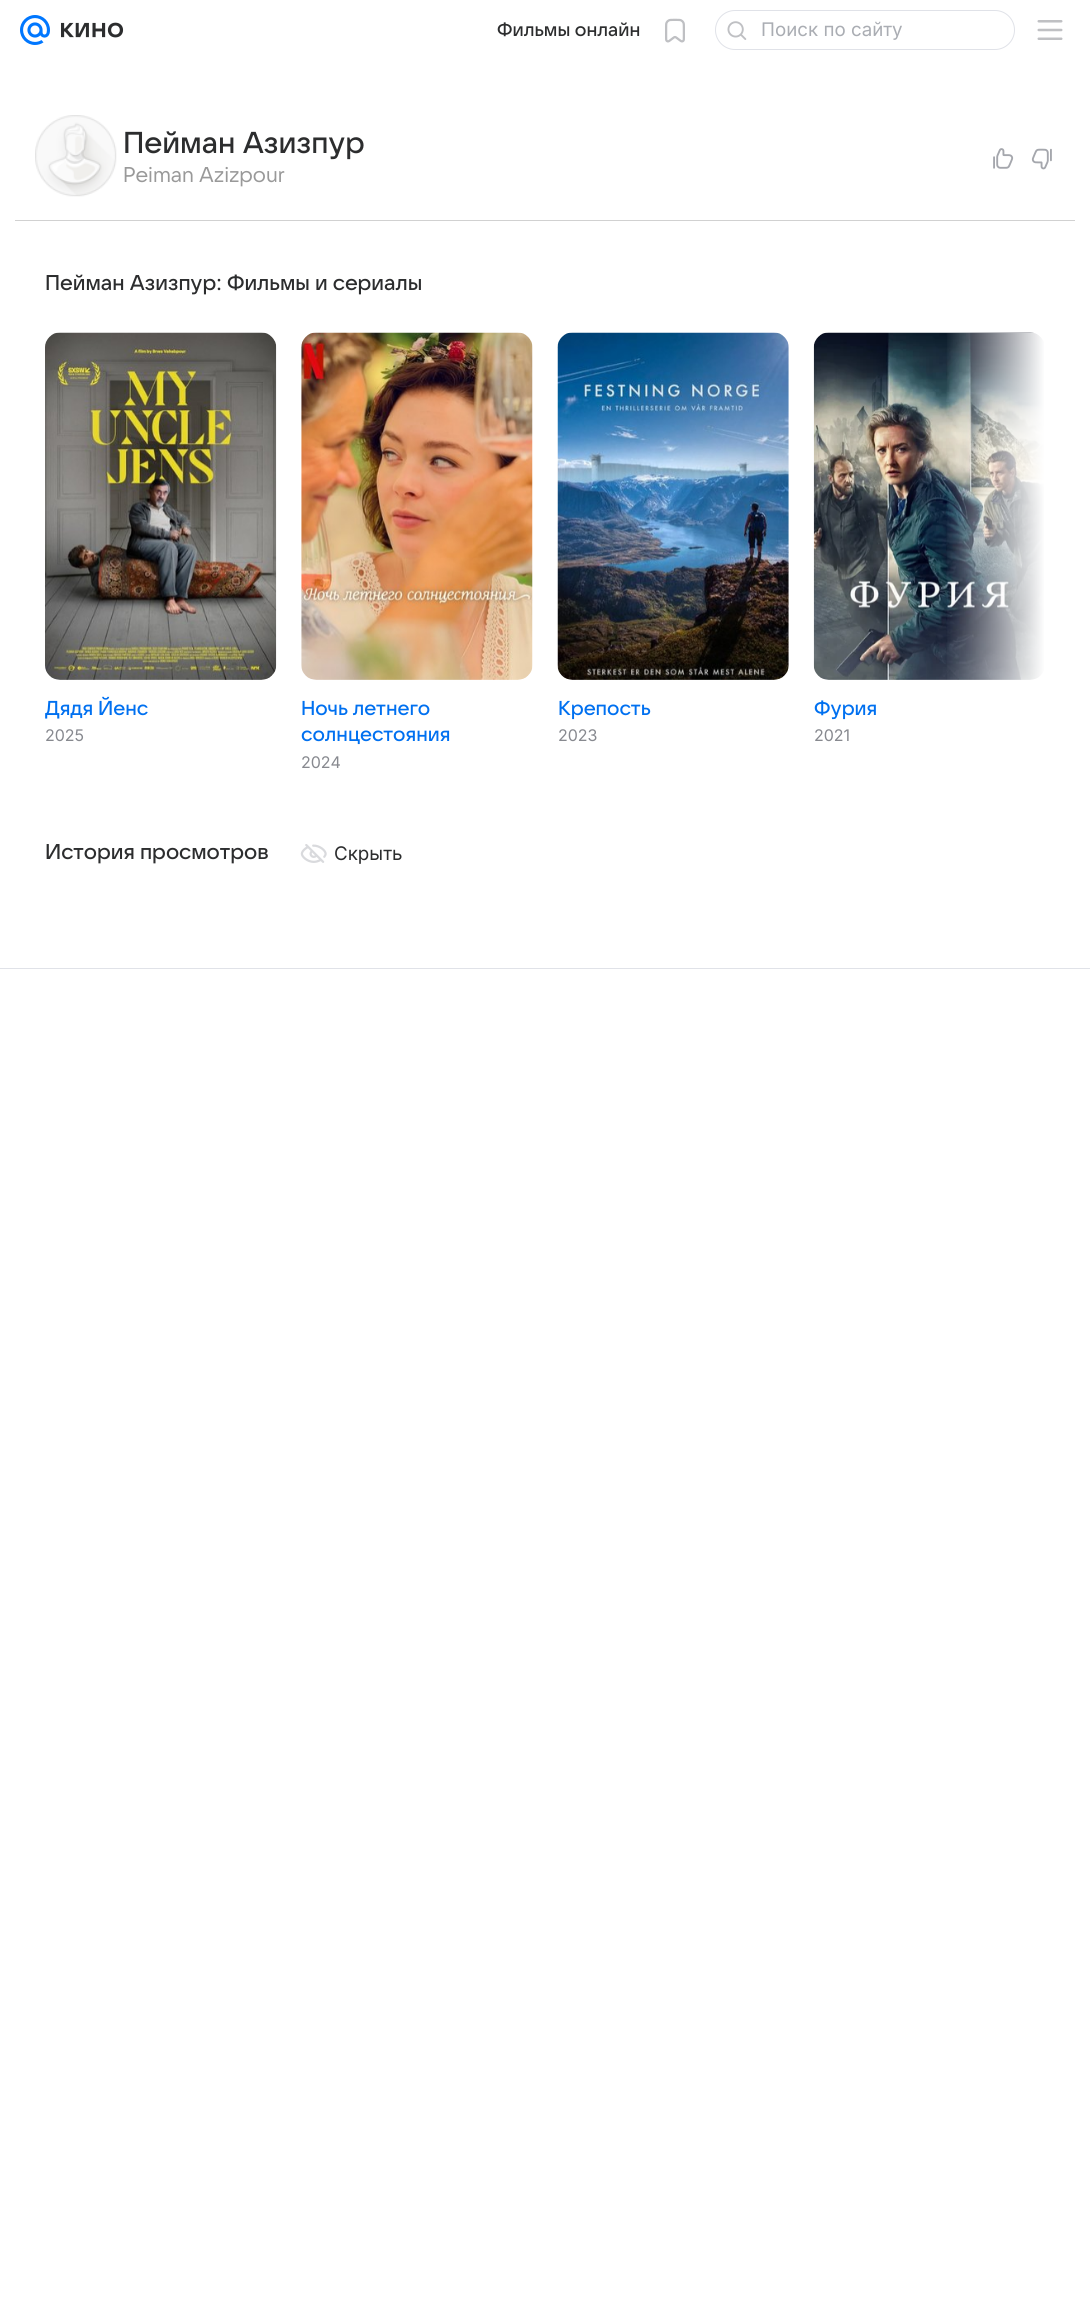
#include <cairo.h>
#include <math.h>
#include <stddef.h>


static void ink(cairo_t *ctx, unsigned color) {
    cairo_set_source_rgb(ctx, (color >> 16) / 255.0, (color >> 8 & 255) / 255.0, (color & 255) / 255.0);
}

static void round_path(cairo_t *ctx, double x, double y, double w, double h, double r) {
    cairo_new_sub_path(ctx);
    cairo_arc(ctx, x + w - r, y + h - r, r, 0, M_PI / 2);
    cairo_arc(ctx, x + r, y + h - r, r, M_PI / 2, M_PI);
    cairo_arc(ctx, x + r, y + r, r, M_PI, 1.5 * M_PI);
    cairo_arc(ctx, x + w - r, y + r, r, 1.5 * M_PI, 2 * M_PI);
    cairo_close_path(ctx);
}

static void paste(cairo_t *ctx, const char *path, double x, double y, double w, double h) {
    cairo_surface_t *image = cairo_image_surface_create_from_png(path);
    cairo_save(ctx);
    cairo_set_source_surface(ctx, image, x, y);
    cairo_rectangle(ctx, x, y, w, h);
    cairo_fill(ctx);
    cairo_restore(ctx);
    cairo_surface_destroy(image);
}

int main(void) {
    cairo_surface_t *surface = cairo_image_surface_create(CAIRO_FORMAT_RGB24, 1090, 2316);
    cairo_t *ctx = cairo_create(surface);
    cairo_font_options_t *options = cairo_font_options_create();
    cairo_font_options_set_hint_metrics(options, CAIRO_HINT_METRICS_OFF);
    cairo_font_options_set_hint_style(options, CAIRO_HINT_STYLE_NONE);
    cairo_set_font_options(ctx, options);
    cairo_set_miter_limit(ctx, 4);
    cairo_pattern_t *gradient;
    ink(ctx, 0xFFFFFF);
    cairo_paint(ctx);
    paste(ctx, "media/1.png", 20, 15, 30, 30);
    paste(ctx, "media/2.png", 61, 22, 63, 16);
    cairo_select_font_face(ctx, "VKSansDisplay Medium", CAIRO_FONT_SLANT_NORMAL, CAIRO_FONT_WEIGHT_NORMAL);
    cairo_set_font_size(ctx, 18.75);
    ink(ctx, 0x2C2D2E);
    cairo_move_to(ctx, 497, 36);
    cairo_show_text(ctx, "Фильмы онлайн");
    paste(ctx, "media/3.png", 665, 18, 20, 25);
    round_path(ctx, 715.5, 10.5, 299, 39, 19.5);
    ink(ctx, 0xE0E2E8);
    cairo_set_line_width(ctx, 1);
    cairo_stroke(ctx);
    paste(ctx, "media/4.png", 727, 21, 20, 19);
    cairo_select_font_face(ctx, "Inter", CAIRO_FONT_SLANT_NORMAL, CAIRO_FONT_WEIGHT_NORMAL);
    ink(ctx, 0xAAADB3);
    cairo_move_to(ctx, 761, 36);
    cairo_show_text(ctx, "Поиск по сайту");
    paste(ctx, "media/5.png", 1037, 20, 26, 20);
    ink(ctx, 0xD1D1D1);
    cairo_rectangle(ctx, 15, 220, 1060, 1);
    cairo_fill(ctx);
    paste(ctx, "media/6.png", 35, 115, 82, 82);
    cairo_select_font_face(ctx, "VKSansDisplay Medium", CAIRO_FONT_SLANT_NORMAL, CAIRO_FONT_WEIGHT_NORMAL);
    cairo_set_font_size(ctx, 30);
    ink(ctx, 0x2C2D2E);
    cairo_move_to(ctx, 123, 153);
    cairo_show_text(ctx, "Пейман Азизпур");
    cairo_select_font_face(ctx, "VKSansDisplay", CAIRO_FONT_SLANT_NORMAL, CAIRO_FONT_WEIGHT_NORMAL);
    cairo_set_font_size(ctx, 21.25);
    ink(ctx, 0x999999);
    cairo_move_to(ctx, 123, 182);
    cairo_show_text(ctx, "Peiman Azizpour");
    paste(ctx, "media/7.png", 993, 148, 21, 21);
    paste(ctx, "media/8.png", 1031, 148, 21, 22);
    cairo_select_font_face(ctx, "VKSansDisplay Medium", CAIRO_FONT_SLANT_NORMAL, CAIRO_FONT_WEIGHT_NORMAL);
    ink(ctx, 0x2C2D2E);
    cairo_move_to(ctx, 45, 290);
    cairo_show_text(ctx, "Пейман Азизпур: Фильмы и сериалы");
    paste(ctx, "media/12.png", 813, 332, 231, 348);
    gradient = cairo_pattern_create_linear(945, 553, 1045, 553);
    cairo_pattern_add_color_stop_rgba(gradient, 0, 1, 1, 1, 0);
    cairo_pattern_add_color_stop_rgba(gradient, 1, 1, 1, 1, 1);
    cairo_set_source(ctx, gradient);
    cairo_pattern_destroy(gradient);
    cairo_rectangle(ctx, 947, 333, 97, 347);
    cairo_fill(ctx);
    paste(ctx, "media/9.png", 45, 332, 232, 348);
    cairo_set_font_size(ctx, 20);
    ink(ctx, 0x0070F0);
    cairo_move_to(ctx, 45, 715);
    cairo_show_text(ctx, "Дядя Йенс");
    cairo_select_font_face(ctx, "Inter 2", CAIRO_FONT_SLANT_NORMAL, CAIRO_FONT_WEIGHT_NORMAL);
    cairo_set_font_size(ctx, 16);
    ink(ctx, 0x87898F);
    cairo_move_to(ctx, 45, 741);
    cairo_show_text(ctx, "2025");
    paste(ctx, "media/10.png", 301, 332, 232, 348);
    cairo_select_font_face(ctx, "VKSansDisplay Medium", CAIRO_FONT_SLANT_NORMAL, CAIRO_FONT_WEIGHT_NORMAL);
    cairo_set_font_size(ctx, 20);
    ink(ctx, 0x0070F0);
    cairo_move_to(ctx, 301, 715);
    cairo_show_text(ctx, "Ночь летнего");
    cairo_move_to(ctx, 301, 741);
    cairo_show_text(ctx, "солнцестояния");
    cairo_select_font_face(ctx, "Inter 2", CAIRO_FONT_SLANT_NORMAL, CAIRO_FONT_WEIGHT_NORMAL);
    cairo_set_font_size(ctx, 16);
    ink(ctx, 0x87898F);
    cairo_move_to(ctx, 301, 768);
    cairo_show_text(ctx, "2024");
    paste(ctx, "media/11.png", 557, 332, 232, 348);
    cairo_select_font_face(ctx, "VKSansDisplay Medium", CAIRO_FONT_SLANT_NORMAL, CAIRO_FONT_WEIGHT_NORMAL);
    cairo_set_font_size(ctx, 20);
    ink(ctx, 0x0070F0);
    cairo_move_to(ctx, 558, 715);
    cairo_show_text(ctx, "Крепость");
    cairo_select_font_face(ctx, "Inter 2", CAIRO_FONT_SLANT_NORMAL, CAIRO_FONT_WEIGHT_NORMAL);
    cairo_set_font_size(ctx, 16);
    ink(ctx, 0x87898F);
    cairo_move_to(ctx, 558, 741);
    cairo_show_text(ctx, "2023");
    cairo_select_font_face(ctx, "VKSansDisplay Medium", CAIRO_FONT_SLANT_NORMAL, CAIRO_FONT_WEIGHT_NORMAL);
    cairo_set_font_size(ctx, 20);
    ink(ctx, 0x0070F0);
    cairo_move_to(ctx, 814, 715);
    cairo_show_text(ctx, "Фурия");
    cairo_select_font_face(ctx, "Inter 2", CAIRO_FONT_SLANT_NORMAL, CAIRO_FONT_WEIGHT_NORMAL);
    cairo_set_font_size(ctx, 16);
    ink(ctx, 0x87898F);
    cairo_move_to(ctx, 814, 741);
    cairo_show_text(ctx, "2021");
    cairo_select_font_face(ctx, "VKSansDisplay Medium", CAIRO_FONT_SLANT_NORMAL, CAIRO_FONT_WEIGHT_NORMAL);
    cairo_set_font_size(ctx, 21.25);
    ink(ctx, 0x2C2D2E);
    cairo_move_to(ctx, 45, 859);
    cairo_show_text(ctx, "История просмотров");
    paste(ctx, "media/13.png", 300, 844, 27, 19);
    cairo_select_font_face(ctx, "Inter", CAIRO_FONT_SLANT_NORMAL, CAIRO_FONT_WEIGHT_NORMAL);
    cairo_set_font_size(ctx, 18.75);
    cairo_move_to(ctx, 334, 860);
    cairo_show_text(ctx, "Скрыть");
    ink(ctx, 0xE0E2E8);
    cairo_rectangle(ctx, 0, 968, 1090, 1);
    cairo_fill(ctx);
    cairo_surface_write_to_png(surface, "image.png");
    cairo_font_options_destroy(options);
    cairo_destroy(ctx);
    cairo_surface_destroy(surface);
    return 0;
}
